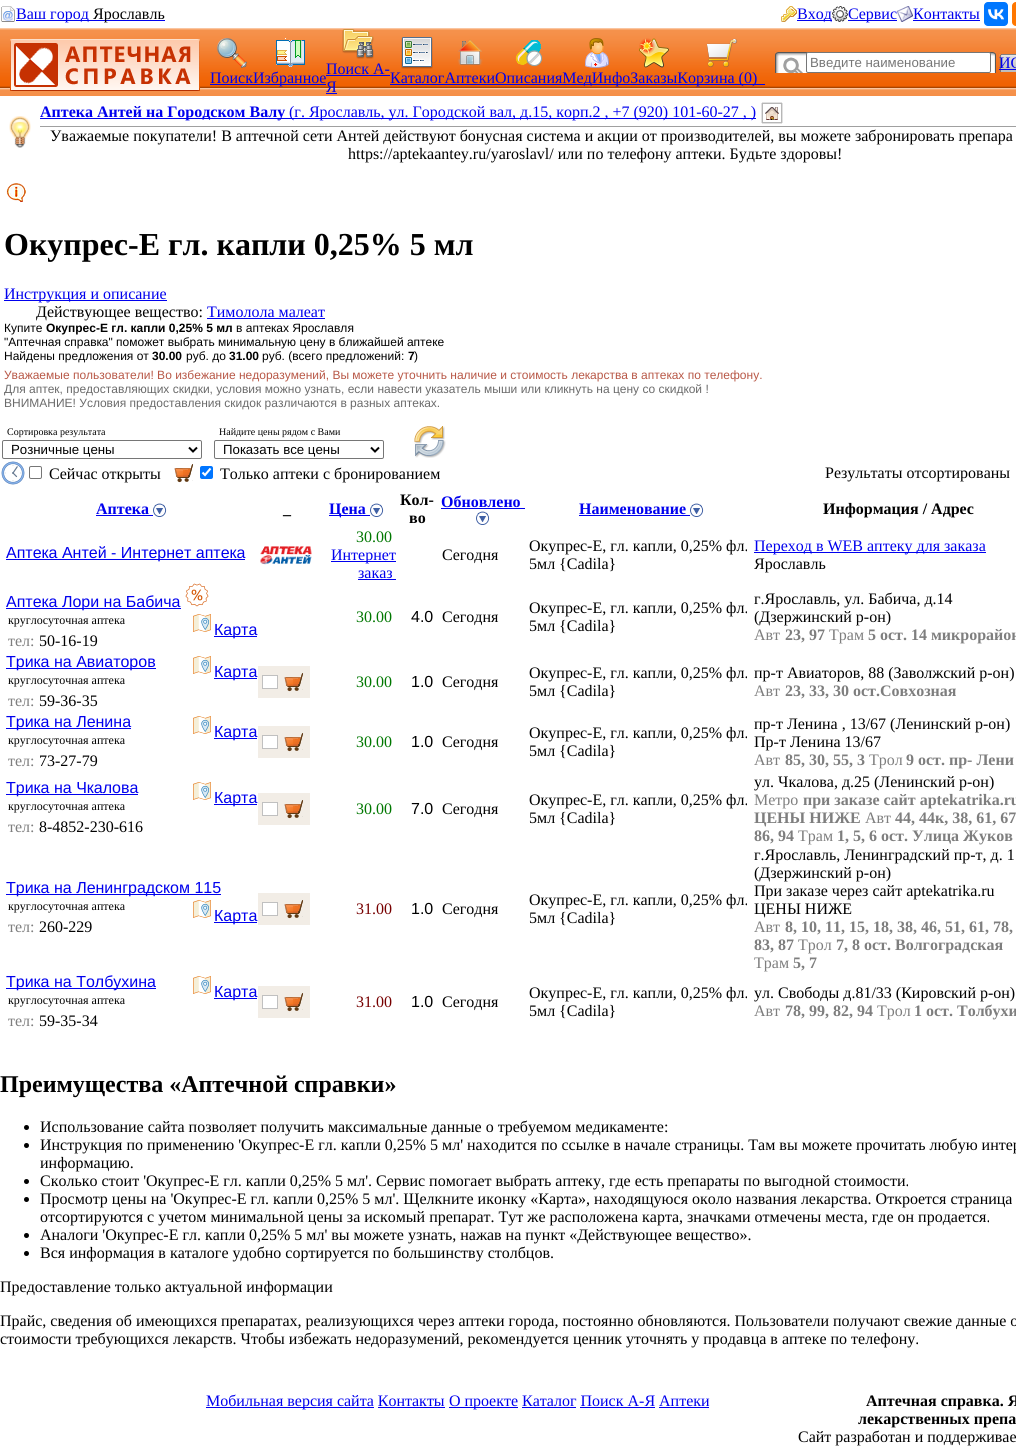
#include <cairo.h>
#include <math.h>
#include <stddef.h>

typedef struct { double x, y; const char *s; } line_t;
typedef struct { double x, y, w, h; unsigned color; } box_t;

static void ink(cairo_t *ctx, unsigned color) {
    cairo_set_source_rgb(ctx, (color >> 16) / 255.0, (color >> 8 & 255) / 255.0, (color & 255) / 255.0);
}

static void round_path(cairo_t *ctx, double x, double y, double w, double h, double r) {
    cairo_new_sub_path(ctx);
    cairo_arc(ctx, x + w - r, y + h - r, r, 0, M_PI / 2);
    cairo_arc(ctx, x + r, y + h - r, r, M_PI / 2, M_PI);
    cairo_arc(ctx, x + r, y + r, r, M_PI, 1.5 * M_PI);
    cairo_arc(ctx, x + w - r, y + r, r, 1.5 * M_PI, 2 * M_PI);
    cairo_close_path(ctx);
}

static void paste(cairo_t *ctx, const char *path, double x, double y, double w, double h) {
    cairo_surface_t *image = cairo_image_surface_create_from_png(path);
    cairo_save(ctx);
    cairo_set_source_surface(ctx, image, x, y);
    cairo_rectangle(ctx, x, y, w, h);
    cairo_fill(ctx);
    cairo_restore(ctx);
    cairo_surface_destroy(image);
}

int main(void) {
    cairo_surface_t *surface = cairo_image_surface_create(CAIRO_FORMAT_RGB24, 1016, 1456);
    cairo_t *ctx = cairo_create(surface);
    cairo_font_options_t *options = cairo_font_options_create();
    cairo_font_options_set_hint_metrics(options, CAIRO_HINT_METRICS_OFF);
    cairo_font_options_set_hint_style(options, CAIRO_HINT_STYLE_NONE);
    cairo_set_font_options(ctx, options);
    cairo_set_miter_limit(ctx, 4);
    ink(ctx, 0xFFFFFF);
    cairo_paint(ctx);
    paste(ctx, "media/1.png", 1, 6, 14, 16);
    ink(ctx, 0x0000EE);
    cairo_rectangle(ctx, 16, 20, 149, 1);
    cairo_fill(ctx);
    cairo_select_font_face(ctx, "Liberation Serif", CAIRO_FONT_SLANT_NORMAL, CAIRO_FONT_WEIGHT_NORMAL);
    cairo_set_font_size(ctx, 16);
    cairo_move_to(ctx, 16, 19);
    cairo_show_text(ctx, "Ваш город");
    ink(ctx, 0x000000);
    cairo_move_to(ctx, 93, 19);
    cairo_show_text(ctx, "Ярославль");
    paste(ctx, "media/2.png", 781, 6, 16, 16);
    ink(ctx, 0x0000EE);
    cairo_rectangle(ctx, 797, 20, 35, 1);
    cairo_fill(ctx);
    cairo_move_to(ctx, 797, 19);
    cairo_show_text(ctx, "Вход");
    paste(ctx, "media/3.png", 832, 6, 16, 16);
    cairo_rectangle(ctx, 848, 20, 49, 1);
    cairo_fill(ctx);
    cairo_move_to(ctx, 848, 19);
    cairo_show_text(ctx, "Сервис");
    paste(ctx, "media/4.png", 897, 6, 16, 16);
    cairo_move_to(ctx, 913, 19);
    cairo_show_text(ctx, "Контакты");
    cairo_rectangle(ctx, 913, 20, 67, 1);
    cairo_fill(ctx);
    ink(ctx, 0x0077FF);
    round_path(ctx, 984, 2, 24, 24, 4);
    cairo_fill(ctx);
    paste(ctx, "media/5.png", 988, 9, 16, 11);
    ink(ctx, 0xFF7700);
    round_path(ctx, 1012, 2, 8, 24, 4);
    cairo_fill(ctx);
    paste(ctx, "media/6.png", 0, 28, 1016, 68);
    paste(ctx, "media/7.png", 10, 39, 190, 52);
    paste(ctx, "media/8.png", 276, 38, 29, 29);
    paste(ctx, "media/9.png", 342, 29, 32, 30);
    ink(ctx, 0x0000EE);
    cairo_move_to(ctx, 326, 74);
    cairo_show_text(ctx, "Поиск А-");
    cairo_rectangle(ctx, 326, 75, 64, 1);
    cairo_fill(ctx);
    cairo_move_to(ctx, 326, 92);
    cairo_show_text(ctx, "Я");
    cairo_rectangle(ctx, 326, 93, 11, 1);
    cairo_fill(ctx);
    paste(ctx, "media/10.png", 457, 39, 26, 27);
    paste(ctx, "media/11.png", 515, 40, 28, 27);
    paste(ctx, "media/12.png", 585, 38, 24, 30);
    paste(ctx, "media/13.png", 639, 38, 30, 30);
    paste(ctx, "media/14.png", 706, 38, 32, 30);
    paste(ctx, "media/15.png", 775, 52, 5, 21);
    paste(ctx, "media/16.png", 780, 52, 26, 21);
    paste(ctx, "media/17.png", 806, 52, 185, 21);
    ink(ctx, 0xFFFFFF);
    round_path(ctx, 806.5, 52.5, 184, 20, 1.5);
    cairo_fill_preserve(ctx);
    ink(ctx, 0x767676);
    cairo_set_line_width(ctx, 1);
    cairo_stroke(ctx);
    cairo_select_font_face(ctx, "Liberation Sans", CAIRO_FONT_SLANT_NORMAL, CAIRO_FONT_WEIGHT_NORMAL);
    cairo_set_font_size(ctx, 13.25);
    ink(ctx, 0x777777);
    cairo_move_to(ctx, 810, 67);
    cairo_show_text(ctx, "Введите наименование");
    paste(ctx, "media/18.png", 991, 52, 5, 21);
    paste(ctx, "media/19.png", 999, 54, 17, 18);
    cairo_select_font_face(ctx, "Liberation Serif", CAIRO_FONT_SLANT_NORMAL, CAIRO_FONT_WEIGHT_NORMAL);
    cairo_set_font_size(ctx, 16);
    ink(ctx, 0x0000EE);
    cairo_move_to(ctx, 999, 68);
    cairo_show_text(ctx, "ИС");
    cairo_rectangle(ctx, 999, 69, 17, 1);
    cairo_fill(ctx);
    paste(ctx, "media/20.png", 217, 38, 30, 30);
    cairo_rectangle(ctx, 210, 84, 116, 1);
    cairo_fill(ctx);
    cairo_move_to(ctx, 210, 83);
    cairo_show_text(ctx, "ПоискИзбранное");
    paste(ctx, "media/21.png", 401, 37, 32, 32);
    cairo_rectangle(ctx, 390, 84, 375, 1);
    cairo_fill(ctx);
    cairo_move_to(ctx, 390, 83);
    cairo_show_text(ctx, "КаталогАптекиОписанияМедИнфоЗаказыКорзина (0)");
    paste(ctx, "media/22.png", 9, 116, 22, 32);
    cairo_rectangle(ctx, 40, 118, 245, 1);
    cairo_fill(ctx);
    cairo_select_font_face(ctx, "Liberation Serif", CAIRO_FONT_SLANT_NORMAL, CAIRO_FONT_WEIGHT_BOLD);
    cairo_move_to(ctx, 40, 117);
    cairo_show_text(ctx, "Аптека Антей на Городском Валу");
    cairo_rectangle(ctx, 285, 118, 471, 1);
    cairo_fill(ctx);
    cairo_select_font_face(ctx, "Liberation Serif", CAIRO_FONT_SLANT_NORMAL, CAIRO_FONT_WEIGHT_NORMAL);
    cairo_move_to(ctx, 289, 117);
    cairo_show_text(ctx, "(г. Ярославль, ул. Городской вал, д.15, корп.2 , +7 (920) 101-60-27 , )");
    paste(ctx, "media/23.png", 761, 102, 22, 22);
    ink(ctx, 0xA0A0A0);
    cairo_rectangle(ctx, 40, 126, 976, 1);
    cairo_fill(ctx);
    ink(ctx, 0x000000);
    cairo_move_to(ctx, 50, 141);
    cairo_show_text(ctx, "Уважаемые покупатели! В аптечной сети Антей действуют бонусная система и акции от производителей, вы можете забронировать препара");
    cairo_move_to(ctx, 348, 159);
    cairo_show_text(ctx, "https://aptekaantey.ru/yaroslavl/ или по телефону аптеки. Будьте здоровы!");
    paste(ctx, "media/24.png", 6, 183, 20, 19);
    cairo_select_font_face(ctx, "Liberation Serif", CAIRO_FONT_SLANT_NORMAL, CAIRO_FONT_WEIGHT_BOLD);
    cairo_set_font_size(ctx, 32);
    cairo_move_to(ctx, 4, 255);
    cairo_show_text(ctx, "Окупрес-Е гл. капли 0,25% 5 мл");
    ink(ctx, 0x0000EE);
    cairo_rectangle(ctx, 4, 300, 163, 1);
    cairo_fill(ctx);
    cairo_select_font_face(ctx, "Liberation Serif", CAIRO_FONT_SLANT_NORMAL, CAIRO_FONT_WEIGHT_NORMAL);
    cairo_set_font_size(ctx, 16);
    cairo_move_to(ctx, 4, 299);
    cairo_show_text(ctx, "Инструкция и описание");
    ink(ctx, 0x000000);
    cairo_move_to(ctx, 36, 317);
    cairo_show_text(ctx, "Действующее вещество:");
    ink(ctx, 0x0000EE);
    cairo_move_to(ctx, 207, 317);
    cairo_show_text(ctx, "Тимолола малеат");
    cairo_rectangle(ctx, 207, 318, 118, 1);
    cairo_fill(ctx);
    cairo_select_font_face(ctx, "Liberation Sans", CAIRO_FONT_SLANT_NORMAL, CAIRO_FONT_WEIGHT_NORMAL);
    cairo_set_font_size(ctx, 12);
    ink(ctx, 0x000000);
    cairo_move_to(ctx, 4, 332);
    cairo_show_text(ctx, "Купите");
    cairo_select_font_face(ctx, "Liberation Sans", CAIRO_FONT_SLANT_NORMAL, CAIRO_FONT_WEIGHT_BOLD);
    cairo_move_to(ctx, 46, 332);
    cairo_show_text(ctx, "Окупрес-Е гл. капли 0,25% 5 мл");
    cairo_select_font_face(ctx, "Liberation Sans", CAIRO_FONT_SLANT_NORMAL, CAIRO_FONT_WEIGHT_NORMAL);
    {
        static const line_t items[] = {
            {236, 332, "в аптеках Ярославля"},
            {4, 346, "\"Аптечная справка\" поможет выбрать минимальную цену в ближайшей аптеке"},
            {4, 360, "Найдены предложения от"},
        };
        for (size_t i = 0; i < sizeof items / sizeof *items; i++) {
            cairo_move_to(ctx, items[i].x, items[i].y);
            cairo_show_text(ctx, items[i].s);
        }
    }
    cairo_select_font_face(ctx, "Liberation Sans", CAIRO_FONT_SLANT_NORMAL, CAIRO_FONT_WEIGHT_BOLD);
    cairo_move_to(ctx, 152, 360);
    cairo_show_text(ctx, "30.00");
    cairo_select_font_face(ctx, "Liberation Sans", CAIRO_FONT_SLANT_NORMAL, CAIRO_FONT_WEIGHT_NORMAL);
    cairo_move_to(ctx, 186, 360);
    cairo_show_text(ctx, "руб. до");
    cairo_select_font_face(ctx, "Liberation Sans", CAIRO_FONT_SLANT_NORMAL, CAIRO_FONT_WEIGHT_BOLD);
    cairo_move_to(ctx, 229, 360);
    cairo_show_text(ctx, "31.00");
    cairo_select_font_face(ctx, "Liberation Sans", CAIRO_FONT_SLANT_NORMAL, CAIRO_FONT_WEIGHT_NORMAL);
    cairo_move_to(ctx, 262, 360);
    cairo_show_text(ctx, "руб. (всего предложений:");
    cairo_select_font_face(ctx, "Liberation Sans", CAIRO_FONT_SLANT_NORMAL, CAIRO_FONT_WEIGHT_BOLD);
    cairo_move_to(ctx, 408, 360);
    cairo_show_text(ctx, "7");
    cairo_select_font_face(ctx, "Liberation Sans", CAIRO_FONT_SLANT_NORMAL, CAIRO_FONT_WEIGHT_NORMAL);
    cairo_move_to(ctx, 414, 360);
    cairo_show_text(ctx, ")");
    ink(ctx, 0xB85847);
    cairo_move_to(ctx, 4, 379);
    cairo_show_text(ctx, "Уважаемые пользователи! Во избежание недоразумений, Вы можете уточнить наличие и стоимость лекарства в аптеках по телефону.");
    ink(ctx, 0x6B6B6B);
    cairo_move_to(ctx, 4, 393);
    cairo_show_text(ctx, "Для аптек, предоставляющих скидки, условия можно узнать, если навести указатель мыши или кликнуть на цену со скидкой !");
    cairo_move_to(ctx, 4, 407);
    cairo_show_text(ctx, "ВНИМАНИЕ! Условия предоставления скидок различаются в разных аптеках.");
    cairo_select_font_face(ctx, "Liberation Serif", CAIRO_FONT_SLANT_NORMAL, CAIRO_FONT_WEIGHT_NORMAL);
    cairo_set_font_size(ctx, 10);
    ink(ctx, 0x000000);
    cairo_move_to(ctx, 7, 435);
    cairo_show_text(ctx, "Сортировка результата");
    round_path(ctx, 2.5, 440.5, 199, 18, 1.5);
    ink(ctx, 0x767676);
    cairo_stroke(ctx);
    cairo_new_path(ctx);
    cairo_move_to(ctx, 189, 447.5);
    cairo_line_to(ctx, 193, 451.5);
    cairo_line_to(ctx, 197, 447.5);
    ink(ctx, 0x000000);
    cairo_set_line_width(ctx, 2);
    cairo_stroke(ctx);
    cairo_select_font_face(ctx, "Liberation Sans", CAIRO_FONT_SLANT_NORMAL, CAIRO_FONT_WEIGHT_NORMAL);
    cairo_set_font_size(ctx, 13.25);
    cairo_move_to(ctx, 11, 454);
    cairo_show_text(ctx, "Розничные цены");
    cairo_select_font_face(ctx, "Liberation Serif", CAIRO_FONT_SLANT_NORMAL, CAIRO_FONT_WEIGHT_NORMAL);
    cairo_set_font_size(ctx, 10);
    cairo_move_to(ctx, 219, 435);
    cairo_show_text(ctx, "Найдите цены рядом с Вами");
    round_path(ctx, 214.5, 440.5, 169, 18, 1.5);
    ink(ctx, 0x767676);
    cairo_set_line_width(ctx, 1);
    cairo_stroke(ctx);
    cairo_new_path(ctx);
    cairo_move_to(ctx, 371, 447.5);
    cairo_line_to(ctx, 375, 451.5);
    cairo_line_to(ctx, 379, 447.5);
    ink(ctx, 0x000000);
    cairo_set_line_width(ctx, 2);
    cairo_stroke(ctx);
    cairo_select_font_face(ctx, "Liberation Sans", CAIRO_FONT_SLANT_NORMAL, CAIRO_FONT_WEIGHT_NORMAL);
    cairo_set_font_size(ctx, 13.25);
    cairo_move_to(ctx, 223, 454);
    cairo_show_text(ctx, "Показать все цены");
    paste(ctx, "media/25.png", 414, 426, 32, 32);
    paste(ctx, "media/26.png", 1, 461, 24, 24);
    round_path(ctx, 29.5, 466.5, 12, 12, 1.5);
    ink(ctx, 0x767676);
    cairo_set_line_width(ctx, 1);
    cairo_stroke(ctx);
    cairo_select_font_face(ctx, "Liberation Serif", CAIRO_FONT_SLANT_NORMAL, CAIRO_FONT_WEIGHT_NORMAL);
    cairo_set_font_size(ctx, 16);
    ink(ctx, 0x000000);
    cairo_move_to(ctx, 49, 479);
    cairo_show_text(ctx, "Сейчас открыты");
    paste(ctx, "media/27.png", 174, 464, 20, 19);
    ink(ctx, 0x0075FF);
    round_path(ctx, 200, 466, 13, 13, 2);
    cairo_fill(ctx);
    cairo_new_path(ctx);
    cairo_move_to(ctx, 202.5, 472.5);
    cairo_line_to(ctx, 205, 475);
    cairo_line_to(ctx, 210.5, 468.5);
    ink(ctx, 0xFFFFFF);
    cairo_set_line_width(ctx, 2.1);
    cairo_stroke(ctx);
    ink(ctx, 0x000000);
    cairo_move_to(ctx, 220, 479);
    cairo_show_text(ctx, "Только аптеки с бронированием");
    cairo_move_to(ctx, 825, 478);
    cairo_show_text(ctx, "Результаты отсортированы");
    cairo_select_font_face(ctx, "Liberation Serif", CAIRO_FONT_SLANT_NORMAL, CAIRO_FONT_WEIGHT_BOLD);
    ink(ctx, 0x0000EE);
    cairo_move_to(ctx, 96, 514);
    cairo_show_text(ctx, "Аптека");
    cairo_rectangle(ctx, 96, 515, 57, 1);
    cairo_fill(ctx);
    paste(ctx, "media/28.png", 153, 503, 14, 14);
    cairo_rectangle(ctx, 329, 515, 41, 1);
    cairo_fill(ctx);
    cairo_move_to(ctx, 329, 514);
    cairo_show_text(ctx, "Цена");
    paste(ctx, "media/28.png", 370, 503, 14, 14);
    ink(ctx, 0x000000);
    cairo_move_to(ctx, 400, 505);
    cairo_show_text(ctx, "Кол-");
    cairo_move_to(ctx, 409, 523);
    cairo_show_text(ctx, "во");
    ink(ctx, 0x0000EE);
    cairo_move_to(ctx, 441, 507);
    cairo_show_text(ctx, "Обновлено");
    cairo_rectangle(ctx, 441, 508, 84, 1);
    cairo_fill(ctx);
    paste(ctx, "media/28.png", 476, 511, 14, 14);
    cairo_move_to(ctx, 579, 514);
    cairo_show_text(ctx, "Наименование");
    cairo_rectangle(ctx, 579, 515, 111, 1);
    cairo_fill(ctx);
    paste(ctx, "media/28.png", 690, 503, 14, 14);
    ink(ctx, 0x000000);
    cairo_move_to(ctx, 823, 514);
    cairo_show_text(ctx, "Информация / Адрес");
    cairo_move_to(ctx, 283, 514);
    cairo_show_text(ctx, "_");
    ink(ctx, 0x0000EE);
    cairo_rectangle(ctx, 6, 559, 239, 1);
    cairo_fill(ctx);
    cairo_select_font_face(ctx, "Liberation Sans", CAIRO_FONT_SLANT_NORMAL, CAIRO_FONT_WEIGHT_NORMAL);
    cairo_move_to(ctx, 6, 558);
    cairo_show_text(ctx, "Аптека Антей - Интернет аптека");
    paste(ctx, "media/29.png", 260, 546, 52, 19);
    cairo_select_font_face(ctx, "Liberation Serif", CAIRO_FONT_SLANT_NORMAL, CAIRO_FONT_WEIGHT_NORMAL);
    ink(ctx, 0x007700);
    cairo_move_to(ctx, 356, 542);
    cairo_show_text(ctx, "30.00");
    ink(ctx, 0x0000EE);
    cairo_rectangle(ctx, 331, 561, 65, 1);
    cairo_fill(ctx);
    cairo_move_to(ctx, 331, 560);
    cairo_show_text(ctx, "Интернет");
    cairo_move_to(ctx, 358, 578);
    cairo_show_text(ctx, "заказ");
    cairo_rectangle(ctx, 358, 579, 38, 1);
    cairo_fill(ctx);
    ink(ctx, 0x000000);
    {
        static const line_t items[] = {
            {442, 560, "Сегодня"},
            {529, 551, "Окупрес-Е, гл. капли, 0,25% фл."},
            {529, 569, "5мл {Cadila}"},
        };
        for (size_t i = 0; i < sizeof items / sizeof *items; i++) {
            cairo_move_to(ctx, items[i].x, items[i].y);
            cairo_show_text(ctx, items[i].s);
        }
    }
    ink(ctx, 0x0000EE);
    cairo_rectangle(ctx, 754, 552, 232, 1);
    cairo_fill(ctx);
    cairo_move_to(ctx, 754, 551);
    cairo_show_text(ctx, "Переход в WEB аптеку для заказа");
    ink(ctx, 0x000000);
    cairo_move_to(ctx, 754, 569);
    cairo_show_text(ctx, "Ярославль");
    ink(ctx, 0x0000EE);
    cairo_rectangle(ctx, 6, 608, 175, 1);
    cairo_fill(ctx);
    cairo_select_font_face(ctx, "Liberation Sans", CAIRO_FONT_SLANT_NORMAL, CAIRO_FONT_WEIGHT_NORMAL);
    cairo_move_to(ctx, 6, 607);
    cairo_show_text(ctx, "Аптека Лори на Бабича");
    paste(ctx, "media/30.png", 185, 583, 24, 24);
    paste(ctx, "media/31.png", 193, 614, 18, 18);
    cairo_rectangle(ctx, 214, 636, 43, 1);
    cairo_fill(ctx);
    cairo_move_to(ctx, 214, 635);
    cairo_show_text(ctx, "Карта");
    cairo_select_font_face(ctx, "Liberation Serif", CAIRO_FONT_SLANT_NORMAL, CAIRO_FONT_WEIGHT_NORMAL);
    cairo_set_font_size(ctx, 12);
    ink(ctx, 0x000000);
    cairo_move_to(ctx, 8, 624);
    cairo_show_text(ctx, "круглосуточная аптека");
    cairo_set_font_size(ctx, 16);
    ink(ctx, 0x7E7E7E);
    cairo_move_to(ctx, 8, 646);
    cairo_show_text(ctx, "тел:");
    ink(ctx, 0x000000);
    cairo_move_to(ctx, 39, 646);
    cairo_show_text(ctx, "50-16-19");
    ink(ctx, 0x007700);
    cairo_move_to(ctx, 356, 622);
    cairo_show_text(ctx, "30.00");
    cairo_select_font_face(ctx, "Liberation Sans", CAIRO_FONT_SLANT_NORMAL, CAIRO_FONT_WEIGHT_NORMAL);
    ink(ctx, 0x000000);
    cairo_move_to(ctx, 411, 622);
    cairo_show_text(ctx, "4.0");
    cairo_select_font_face(ctx, "Liberation Serif", CAIRO_FONT_SLANT_NORMAL, CAIRO_FONT_WEIGHT_NORMAL);
    {
        static const line_t items[] = {
            {442, 622, "Сегодня"},
            {529, 613, "Окупрес-Е, гл. капли, 0,25% фл."},
            {529, 631, "5мл {Cadila}"},
            {754, 604, "г.Ярославль, ул. Бабича, д.14"},
            {754, 622, "(Дзержинский р-он)"},
        };
        for (size_t i = 0; i < sizeof items / sizeof *items; i++) {
            cairo_move_to(ctx, items[i].x, items[i].y);
            cairo_show_text(ctx, items[i].s);
        }
    }
    ink(ctx, 0x7E7E7E);
    cairo_move_to(ctx, 754, 640);
    cairo_show_text(ctx, "Авт");
    cairo_select_font_face(ctx, "Liberation Serif", CAIRO_FONT_SLANT_NORMAL, CAIRO_FONT_WEIGHT_BOLD);
    cairo_move_to(ctx, 785, 640);
    cairo_show_text(ctx, "23, 97");
    cairo_select_font_face(ctx, "Liberation Serif", CAIRO_FONT_SLANT_NORMAL, CAIRO_FONT_WEIGHT_NORMAL);
    cairo_move_to(ctx, 829, 640);
    cairo_show_text(ctx, "Трам");
    cairo_select_font_face(ctx, "Liberation Serif", CAIRO_FONT_SLANT_NORMAL, CAIRO_FONT_WEIGHT_BOLD);
    cairo_move_to(ctx, 868, 640);
    cairo_show_text(ctx, "5 ост. 14 микрорайон");
    ink(ctx, 0x0000EE);
    cairo_rectangle(ctx, 6, 668, 150, 1);
    cairo_fill(ctx);
    cairo_select_font_face(ctx, "Liberation Sans", CAIRO_FONT_SLANT_NORMAL, CAIRO_FONT_WEIGHT_NORMAL);
    cairo_move_to(ctx, 6, 667);
    cairo_show_text(ctx, "Трика на Авиаторов");
    paste(ctx, "media/31.png", 193, 656, 18, 18);
    cairo_rectangle(ctx, 214, 678, 43, 1);
    cairo_fill(ctx);
    cairo_move_to(ctx, 214, 677);
    cairo_show_text(ctx, "Карта");
    cairo_select_font_face(ctx, "Liberation Serif", CAIRO_FONT_SLANT_NORMAL, CAIRO_FONT_WEIGHT_NORMAL);
    cairo_set_font_size(ctx, 12);
    ink(ctx, 0x000000);
    cairo_move_to(ctx, 8, 684);
    cairo_show_text(ctx, "круглосуточная аптека");
    cairo_set_font_size(ctx, 16);
    ink(ctx, 0x7E7E7E);
    cairo_move_to(ctx, 8, 706);
    cairo_show_text(ctx, "тел:");
    ink(ctx, 0x000000);
    cairo_move_to(ctx, 39, 706);
    cairo_show_text(ctx, "59-36-35");
    ink(ctx, 0xF2EDE6);
    cairo_rectangle(ctx, 258, 666, 52, 32);
    cairo_fill(ctx);
    ink(ctx, 0xFFFFFF);
    cairo_rectangle(ctx, 262.5, 675.5, 15, 13);
    cairo_fill_preserve(ctx);
    ink(ctx, 0xC0C0C0);
    cairo_set_line_width(ctx, 1);
    cairo_stroke(ctx);
    paste(ctx, "media/32.png", 284, 673, 20, 19);
    ink(ctx, 0x007700);
    cairo_move_to(ctx, 356, 687);
    cairo_show_text(ctx, "30.00");
    cairo_select_font_face(ctx, "Liberation Sans", CAIRO_FONT_SLANT_NORMAL, CAIRO_FONT_WEIGHT_NORMAL);
    ink(ctx, 0x000000);
    cairo_move_to(ctx, 411, 687);
    cairo_show_text(ctx, "1.0");
    cairo_select_font_face(ctx, "Liberation Serif", CAIRO_FONT_SLANT_NORMAL, CAIRO_FONT_WEIGHT_NORMAL);
    {
        static const line_t items[] = {
            {442, 687, "Сегодня"},
            {529, 678, "Окупрес-Е, гл. капли, 0,25% фл."},
            {529, 696, "5мл {Cadila}"},
            {754, 678, "пр-т Авиаторов, 88 (Заволжский р-он)"},
        };
        for (size_t i = 0; i < sizeof items / sizeof *items; i++) {
            cairo_move_to(ctx, items[i].x, items[i].y);
            cairo_show_text(ctx, items[i].s);
        }
    }
    ink(ctx, 0x7E7E7E);
    cairo_move_to(ctx, 754, 696);
    cairo_show_text(ctx, "Авт");
    cairo_select_font_face(ctx, "Liberation Serif", CAIRO_FONT_SLANT_NORMAL, CAIRO_FONT_WEIGHT_BOLD);
    cairo_move_to(ctx, 785, 696);
    cairo_show_text(ctx, "23, 33, 30 ост.Совхозная");
    ink(ctx, 0x0000EE);
    cairo_rectangle(ctx, 6, 728, 125, 1);
    cairo_fill(ctx);
    cairo_select_font_face(ctx, "Liberation Sans", CAIRO_FONT_SLANT_NORMAL, CAIRO_FONT_WEIGHT_NORMAL);
    cairo_move_to(ctx, 6, 727);
    cairo_show_text(ctx, "Трика на Ленина");
    paste(ctx, "media/31.png", 193, 716, 18, 18);
    cairo_rectangle(ctx, 214, 738, 43, 1);
    cairo_fill(ctx);
    cairo_move_to(ctx, 214, 737);
    cairo_show_text(ctx, "Карта");
    cairo_select_font_face(ctx, "Liberation Serif", CAIRO_FONT_SLANT_NORMAL, CAIRO_FONT_WEIGHT_NORMAL);
    cairo_set_font_size(ctx, 12);
    ink(ctx, 0x000000);
    cairo_move_to(ctx, 8, 744);
    cairo_show_text(ctx, "круглосуточная аптека");
    cairo_set_font_size(ctx, 16);
    ink(ctx, 0x7E7E7E);
    cairo_move_to(ctx, 8, 766);
    cairo_show_text(ctx, "тел:");
    ink(ctx, 0x000000);
    cairo_move_to(ctx, 39, 766);
    cairo_show_text(ctx, "73-27-79");
    ink(ctx, 0xF2EDE6);
    cairo_rectangle(ctx, 258, 726, 52, 32);
    cairo_fill(ctx);
    ink(ctx, 0xFFFFFF);
    cairo_rectangle(ctx, 262.5, 735.5, 15, 13);
    cairo_fill_preserve(ctx);
    ink(ctx, 0xC0C0C0);
    cairo_stroke(ctx);
    paste(ctx, "media/32.png", 284, 733, 20, 19);
    ink(ctx, 0x007700);
    cairo_move_to(ctx, 356, 747);
    cairo_show_text(ctx, "30.00");
    cairo_select_font_face(ctx, "Liberation Sans", CAIRO_FONT_SLANT_NORMAL, CAIRO_FONT_WEIGHT_NORMAL);
    ink(ctx, 0x000000);
    cairo_move_to(ctx, 411, 747);
    cairo_show_text(ctx, "1.0");
    cairo_select_font_face(ctx, "Liberation Serif", CAIRO_FONT_SLANT_NORMAL, CAIRO_FONT_WEIGHT_NORMAL);
    {
        static const line_t items[] = {
            {442, 747, "Сегодня"},
            {529, 738, "Окупрес-Е, гл. капли, 0,25% фл."},
            {529, 756, "5мл {Cadila}"},
            {754, 729, "пр-т Ленина , 13/67 (Ленинский р-он)"},
            {754, 747, "Пр-т Ленина 13/67"},
        };
        for (size_t i = 0; i < sizeof items / sizeof *items; i++) {
            cairo_move_to(ctx, items[i].x, items[i].y);
            cairo_show_text(ctx, items[i].s);
        }
    }
    ink(ctx, 0x7E7E7E);
    cairo_move_to(ctx, 754, 765);
    cairo_show_text(ctx, "Авт");
    cairo_select_font_face(ctx, "Liberation Serif", CAIRO_FONT_SLANT_NORMAL, CAIRO_FONT_WEIGHT_BOLD);
    cairo_move_to(ctx, 785, 765);
    cairo_show_text(ctx, "85, 30, 55, 3");
    cairo_select_font_face(ctx, "Liberation Serif", CAIRO_FONT_SLANT_NORMAL, CAIRO_FONT_WEIGHT_NORMAL);
    cairo_move_to(ctx, 869, 765);
    cairo_show_text(ctx, "Трол");
    cairo_select_font_face(ctx, "Liberation Serif", CAIRO_FONT_SLANT_NORMAL, CAIRO_FONT_WEIGHT_BOLD);
    cairo_move_to(ctx, 906, 765);
    cairo_show_text(ctx, "9 ост. пр- Лени");
    ink(ctx, 0x0000EE);
    cairo_rectangle(ctx, 6, 794, 132, 1);
    cairo_fill(ctx);
    cairo_select_font_face(ctx, "Liberation Sans", CAIRO_FONT_SLANT_NORMAL, CAIRO_FONT_WEIGHT_NORMAL);
    cairo_move_to(ctx, 6, 793);
    cairo_show_text(ctx, "Трика на Чкалова");
    paste(ctx, "media/31.png", 193, 782, 18, 18);
    cairo_rectangle(ctx, 214, 804, 43, 1);
    cairo_fill(ctx);
    cairo_move_to(ctx, 214, 803);
    cairo_show_text(ctx, "Карта");
    cairo_select_font_face(ctx, "Liberation Serif", CAIRO_FONT_SLANT_NORMAL, CAIRO_FONT_WEIGHT_NORMAL);
    cairo_set_font_size(ctx, 12);
    ink(ctx, 0x000000);
    cairo_move_to(ctx, 8, 810);
    cairo_show_text(ctx, "круглосуточная аптека");
    cairo_set_font_size(ctx, 16);
    ink(ctx, 0x7E7E7E);
    cairo_move_to(ctx, 8, 832);
    cairo_show_text(ctx, "тел:");
    ink(ctx, 0x000000);
    cairo_move_to(ctx, 39, 832);
    cairo_show_text(ctx, "8-4852-230-616");
    ink(ctx, 0xF2EDE6);
    cairo_rectangle(ctx, 258, 793, 52, 32);
    cairo_fill(ctx);
    ink(ctx, 0xFFFFFF);
    cairo_rectangle(ctx, 262.5, 802.5, 15, 13);
    cairo_fill_preserve(ctx);
    ink(ctx, 0xC0C0C0);
    cairo_stroke(ctx);
    paste(ctx, "media/32.png", 284, 800, 20, 19);
    ink(ctx, 0x007700);
    cairo_move_to(ctx, 356, 814);
    cairo_show_text(ctx, "30.00");
    cairo_select_font_face(ctx, "Liberation Sans", CAIRO_FONT_SLANT_NORMAL, CAIRO_FONT_WEIGHT_NORMAL);
    ink(ctx, 0x000000);
    cairo_move_to(ctx, 411, 814);
    cairo_show_text(ctx, "7.0");
    cairo_select_font_face(ctx, "Liberation Serif", CAIRO_FONT_SLANT_NORMAL, CAIRO_FONT_WEIGHT_NORMAL);
    {
        static const line_t items[] = {
            {442, 814, "Сегодня"},
            {529, 805, "Окупрес-Е, гл. капли, 0,25% фл."},
            {529, 823, "5мл {Cadila}"},
            {754, 787, "ул. Чкалова, д.25 (Ленинский р-он)"},
        };
        for (size_t i = 0; i < sizeof items / sizeof *items; i++) {
            cairo_move_to(ctx, items[i].x, items[i].y);
            cairo_show_text(ctx, items[i].s);
        }
    }
    ink(ctx, 0x7E7E7E);
    cairo_move_to(ctx, 754, 805);
    cairo_show_text(ctx, "Метро");
    cairo_select_font_face(ctx, "Liberation Serif", CAIRO_FONT_SLANT_NORMAL, CAIRO_FONT_WEIGHT_BOLD);
    cairo_move_to(ctx, 803, 805);
    cairo_show_text(ctx, "при заказе сайт aptekatrika.ru");
    cairo_move_to(ctx, 754, 823);
    cairo_show_text(ctx, "ЦЕНЫ НИЖЕ");
    cairo_select_font_face(ctx, "Liberation Serif", CAIRO_FONT_SLANT_NORMAL, CAIRO_FONT_WEIGHT_NORMAL);
    cairo_move_to(ctx, 865, 823);
    cairo_show_text(ctx, "Авт");
    cairo_select_font_face(ctx, "Liberation Serif", CAIRO_FONT_SLANT_NORMAL, CAIRO_FONT_WEIGHT_BOLD);
    cairo_move_to(ctx, 895, 823);
    cairo_show_text(ctx, "44, 44к, 38, 61, 67");
    cairo_move_to(ctx, 754, 841);
    cairo_show_text(ctx, "86, 94");
    cairo_select_font_face(ctx, "Liberation Serif", CAIRO_FONT_SLANT_NORMAL, CAIRO_FONT_WEIGHT_NORMAL);
    cairo_move_to(ctx, 798, 841);
    cairo_show_text(ctx, "Трам");
    cairo_select_font_face(ctx, "Liberation Serif", CAIRO_FONT_SLANT_NORMAL, CAIRO_FONT_WEIGHT_BOLD);
    cairo_move_to(ctx, 837, 841);
    cairo_show_text(ctx, "1, 5, 6 ост. Улица Жуков");
    ink(ctx, 0x0000EE);
    cairo_rectangle(ctx, 6, 894, 215, 1);
    cairo_fill(ctx);
    cairo_select_font_face(ctx, "Liberation Sans", CAIRO_FONT_SLANT_NORMAL, CAIRO_FONT_WEIGHT_NORMAL);
    cairo_move_to(ctx, 6, 893);
    cairo_show_text(ctx, "Трика на Ленинградском 115");
    paste(ctx, "media/31.png", 193, 900, 18, 18);
    cairo_rectangle(ctx, 214, 922, 43, 1);
    cairo_fill(ctx);
    cairo_move_to(ctx, 214, 921);
    cairo_show_text(ctx, "Карта");
    cairo_select_font_face(ctx, "Liberation Serif", CAIRO_FONT_SLANT_NORMAL, CAIRO_FONT_WEIGHT_NORMAL);
    cairo_set_font_size(ctx, 12);
    ink(ctx, 0x000000);
    cairo_move_to(ctx, 8, 910);
    cairo_show_text(ctx, "круглосуточная аптека");
    cairo_set_font_size(ctx, 16);
    ink(ctx, 0x7E7E7E);
    cairo_move_to(ctx, 8, 932);
    cairo_show_text(ctx, "тел:");
    ink(ctx, 0x000000);
    cairo_move_to(ctx, 39, 932);
    cairo_show_text(ctx, "260-229");
    ink(ctx, 0xF2EDE6);
    cairo_rectangle(ctx, 258, 893, 52, 32);
    cairo_fill(ctx);
    ink(ctx, 0xFFFFFF);
    cairo_rectangle(ctx, 262.5, 902.5, 15, 13);
    cairo_fill_preserve(ctx);
    ink(ctx, 0xC0C0C0);
    cairo_stroke(ctx);
    paste(ctx, "media/32.png", 284, 900, 20, 19);
    ink(ctx, 0x770000);
    cairo_move_to(ctx, 356, 914);
    cairo_show_text(ctx, "31.00");
    cairo_select_font_face(ctx, "Liberation Sans", CAIRO_FONT_SLANT_NORMAL, CAIRO_FONT_WEIGHT_NORMAL);
    ink(ctx, 0x000000);
    cairo_move_to(ctx, 411, 914);
    cairo_show_text(ctx, "1.0");
    cairo_select_font_face(ctx, "Liberation Serif", CAIRO_FONT_SLANT_NORMAL, CAIRO_FONT_WEIGHT_NORMAL);
    {
        static const line_t items[] = {
            {442, 914, "Сегодня"},
            {529, 905, "Окупрес-Е, гл. капли, 0,25% фл."},
            {529, 923, "5мл {Cadila}"},
            {754, 860, "г.Ярославль, Ленинградский пр-т, д. 1"},
            {754, 878, "(Дзержинский р-он)"},
            {754, 896, "При заказе через сайт aptekatrika.ru"},
            {754, 914, "ЦЕНЫ НИЖЕ"},
        };
        for (size_t i = 0; i < sizeof items / sizeof *items; i++) {
            cairo_move_to(ctx, items[i].x, items[i].y);
            cairo_show_text(ctx, items[i].s);
        }
    }
    ink(ctx, 0x7E7E7E);
    cairo_move_to(ctx, 754, 932);
    cairo_show_text(ctx, "Авт");
    cairo_select_font_face(ctx, "Liberation Serif", CAIRO_FONT_SLANT_NORMAL, CAIRO_FONT_WEIGHT_BOLD);
    cairo_move_to(ctx, 785, 932);
    cairo_show_text(ctx, "8, 10, 11, 15, 18, 38, 46, 51, 61, 78,");
    cairo_move_to(ctx, 754, 950);
    cairo_show_text(ctx, "83, 87");
    cairo_select_font_face(ctx, "Liberation Serif", CAIRO_FONT_SLANT_NORMAL, CAIRO_FONT_WEIGHT_NORMAL);
    cairo_move_to(ctx, 798, 950);
    cairo_show_text(ctx, "Трол");
    cairo_select_font_face(ctx, "Liberation Serif", CAIRO_FONT_SLANT_NORMAL, CAIRO_FONT_WEIGHT_BOLD);
    cairo_move_to(ctx, 836, 950);
    cairo_show_text(ctx, "7, 8 ост. Волгоградская");
    cairo_select_font_face(ctx, "Liberation Serif", CAIRO_FONT_SLANT_NORMAL, CAIRO_FONT_WEIGHT_NORMAL);
    cairo_move_to(ctx, 754, 968);
    cairo_show_text(ctx, "Трам");
    cairo_select_font_face(ctx, "Liberation Serif", CAIRO_FONT_SLANT_NORMAL, CAIRO_FONT_WEIGHT_BOLD);
    cairo_move_to(ctx, 793, 968);
    cairo_show_text(ctx, "5, 7");
    ink(ctx, 0x0000EE);
    cairo_rectangle(ctx, 6, 988, 150, 1);
    cairo_fill(ctx);
    cairo_select_font_face(ctx, "Liberation Sans", CAIRO_FONT_SLANT_NORMAL, CAIRO_FONT_WEIGHT_NORMAL);
    cairo_move_to(ctx, 6, 987);
    cairo_show_text(ctx, "Трика на Толбухина");
    paste(ctx, "media/31.png", 193, 976, 18, 18);
    cairo_rectangle(ctx, 214, 998, 43, 1);
    cairo_fill(ctx);
    cairo_move_to(ctx, 214, 997);
    cairo_show_text(ctx, "Карта");
    cairo_select_font_face(ctx, "Liberation Serif", CAIRO_FONT_SLANT_NORMAL, CAIRO_FONT_WEIGHT_NORMAL);
    cairo_set_font_size(ctx, 12);
    ink(ctx, 0x000000);
    cairo_move_to(ctx, 8, 1004);
    cairo_show_text(ctx, "круглосуточная аптека");
    cairo_set_font_size(ctx, 16);
    ink(ctx, 0x7E7E7E);
    cairo_move_to(ctx, 8, 1026);
    cairo_show_text(ctx, "тел:");
    ink(ctx, 0x000000);
    cairo_move_to(ctx, 39, 1026);
    cairo_show_text(ctx, "59-35-34");
    ink(ctx, 0xF2EDE6);
    cairo_rectangle(ctx, 258, 986, 52, 32);
    cairo_fill(ctx);
    ink(ctx, 0xFFFFFF);
    cairo_rectangle(ctx, 262.5, 995.5, 15, 13);
    cairo_fill_preserve(ctx);
    ink(ctx, 0xC0C0C0);
    cairo_stroke(ctx);
    paste(ctx, "media/32.png", 284, 993, 20, 19);
    ink(ctx, 0x770000);
    cairo_move_to(ctx, 356, 1007);
    cairo_show_text(ctx, "31.00");
    cairo_select_font_face(ctx, "Liberation Sans", CAIRO_FONT_SLANT_NORMAL, CAIRO_FONT_WEIGHT_NORMAL);
    ink(ctx, 0x000000);
    cairo_move_to(ctx, 411, 1007);
    cairo_show_text(ctx, "1.0");
    cairo_select_font_face(ctx, "Liberation Serif", CAIRO_FONT_SLANT_NORMAL, CAIRO_FONT_WEIGHT_NORMAL);
    {
        static const line_t items[] = {
            {442, 1007, "Сегодня"},
            {529, 998, "Окупрес-Е, гл. капли, 0,25% фл."},
            {529, 1016, "5мл {Cadila}"},
            {754, 998, "ул. Свободы д.81/33 (Кировский р-он)"},
        };
        for (size_t i = 0; i < sizeof items / sizeof *items; i++) {
            cairo_move_to(ctx, items[i].x, items[i].y);
            cairo_show_text(ctx, items[i].s);
        }
    }
    ink(ctx, 0x7E7E7E);
    cairo_move_to(ctx, 754, 1016);
    cairo_show_text(ctx, "Авт");
    cairo_select_font_face(ctx, "Liberation Serif", CAIRO_FONT_SLANT_NORMAL, CAIRO_FONT_WEIGHT_BOLD);
    cairo_move_to(ctx, 785, 1016);
    cairo_show_text(ctx, "78, 99, 82, 94");
    cairo_select_font_face(ctx, "Liberation Serif", CAIRO_FONT_SLANT_NORMAL, CAIRO_FONT_WEIGHT_NORMAL);
    cairo_move_to(ctx, 877, 1016);
    cairo_show_text(ctx, "Трол");
    cairo_select_font_face(ctx, "Liberation Serif", CAIRO_FONT_SLANT_NORMAL, CAIRO_FONT_WEIGHT_BOLD);
    cairo_move_to(ctx, 914, 1016);
    cairo_show_text(ctx, "1 ост. Толбухи");
    cairo_set_font_size(ctx, 24);
    ink(ctx, 0x000000);
    cairo_move_to(ctx, 0, 1092);
    cairo_show_text(ctx, "Преимущества «Аптечной справки»");
    cairo_new_path(ctx);
    cairo_arc(ctx, 26.5, 1127.5, 2.5, 0, 2 * M_PI);
    cairo_fill(ctx);
    cairo_select_font_face(ctx, "Liberation Serif", CAIRO_FONT_SLANT_NORMAL, CAIRO_FONT_WEIGHT_NORMAL);
    cairo_set_font_size(ctx, 16);
    cairo_move_to(ctx, 40, 1132);
    cairo_show_text(ctx, "Использование сайта позволяет получить максимальные данные о требуемом медикаменте:");
    cairo_new_path(ctx);
    cairo_arc(ctx, 26.5, 1145.5, 2.5, 0, 2 * M_PI);
    cairo_fill(ctx);
    cairo_move_to(ctx, 40, 1150);
    cairo_show_text(ctx, "Инструкция по применению 'Окупрес-Е гл. капли 0,25% 5 мл' находится по ссылке в начале страницы. Там вы можете прочитать любую интер");
    cairo_move_to(ctx, 40, 1168);
    cairo_show_text(ctx, "информацию.");
    cairo_new_path(ctx);
    cairo_arc(ctx, 26.5, 1181.5, 2.5, 0, 2 * M_PI);
    cairo_fill(ctx);
    cairo_move_to(ctx, 40, 1186);
    cairo_show_text(ctx, "Сколько стоит 'Окупрес-Е гл. капли 0,25% 5 мл'. Сервис помогает выбрать аптеку, где есть препараты по выгодной стоимости.");
    cairo_new_path(ctx);
    cairo_arc(ctx, 26.5, 1199.5, 2.5, 0, 2 * M_PI);
    cairo_fill(ctx);
    cairo_move_to(ctx, 40, 1204);
    cairo_show_text(ctx, "Просмотр цены на 'Окупрес-Е гл. капли 0,25% 5 мл'. Щелкните иконку «Карта», находящуюся около названия лекарства. Откроется страница");
    cairo_move_to(ctx, 40, 1222);
    cairo_show_text(ctx, "отсортируются с учетом минимальной цены за искомый препарат. Тут же расположена карта, значками отмечены места, где он продается.");
    cairo_new_path(ctx);
    cairo_arc(ctx, 26.5, 1235.5, 2.5, 0, 2 * M_PI);
    cairo_fill(ctx);
    cairo_move_to(ctx, 40, 1240);
    cairo_show_text(ctx, "Аналоги 'Окупрес-Е гл. капли 0,25% 5 мл' вы можете узнать, нажав на пункт «Действующее вещество».");
    cairo_new_path(ctx);
    cairo_arc(ctx, 26.5, 1253.5, 2.5, 0, 2 * M_PI);
    cairo_fill(ctx);
    {
        static const line_t items[] = {
            {40, 1258, "Вся информация в каталоге удобно сортируется по большинству столбцов."},
            {0, 1292, "Предоставление только актуальной информации"},
            {0, 1326, "Прайс, сведения об имеющихся препаратах, реализующихся через аптеки города, постоянно обновляются. Пользователи получают свежие данные о"},
            {0, 1344, "стоимости требующихся лекарств. Чтобы избежать недоразумений, рекомендуется ценник уточнять у продавца в аптеке по телефону."},
        };
        for (size_t i = 0; i < sizeof items / sizeof *items; i++) {
            cairo_move_to(ctx, items[i].x, items[i].y);
            cairo_show_text(ctx, items[i].s);
        }
    }
    ink(ctx, 0x0000EE);
    cairo_rectangle(ctx, 206, 1407, 168, 1);
    cairo_fill(ctx);
    cairo_move_to(ctx, 206, 1406);
    cairo_show_text(ctx, "Мобильная версия сайта Контакты");
    cairo_rectangle(ctx, 449, 1407, 69, 1);
    cairo_fill(ctx);
    cairo_move_to(ctx, 449, 1406);
    cairo_show_text(ctx, "О проекте Каталог Поиск А-Я Аптеки");
    {
        static const box_t items[] = {
            {378, 1407, 67, 1, 0x0000EE},
            {522, 1407, 54, 1, 0x0000EE},
            {580, 1407, 75, 1, 0x0000EE},
            {659, 1407, 50, 1, 0x0000EE},
        };
        for (size_t i = 0; i < sizeof items / sizeof *items; i++) {
            ink(ctx, items[i].color);
            cairo_rectangle(ctx, items[i].x, items[i].y, items[i].w, items[i].h);
            cairo_fill(ctx);
        }
    }
    cairo_select_font_face(ctx, "Liberation Serif", CAIRO_FONT_SLANT_NORMAL, CAIRO_FONT_WEIGHT_BOLD);
    ink(ctx, 0x000000);
    cairo_move_to(ctx, 866, 1406);
    cairo_show_text(ctx, "Аптечная справка. Я");
    cairo_move_to(ctx, 858, 1424);
    cairo_show_text(ctx, "лекарственных препа");
    cairo_select_font_face(ctx, "Liberation Serif", CAIRO_FONT_SLANT_NORMAL, CAIRO_FONT_WEIGHT_NORMAL);
    cairo_move_to(ctx, 798, 1442);
    cairo_show_text(ctx, "Сайт разработан и поддерживае");
    cairo_surface_write_to_png(surface, "image.png");
    cairo_font_options_destroy(options);
    cairo_destroy(ctx);
    cairo_surface_destroy(surface);
    return 0;
}
